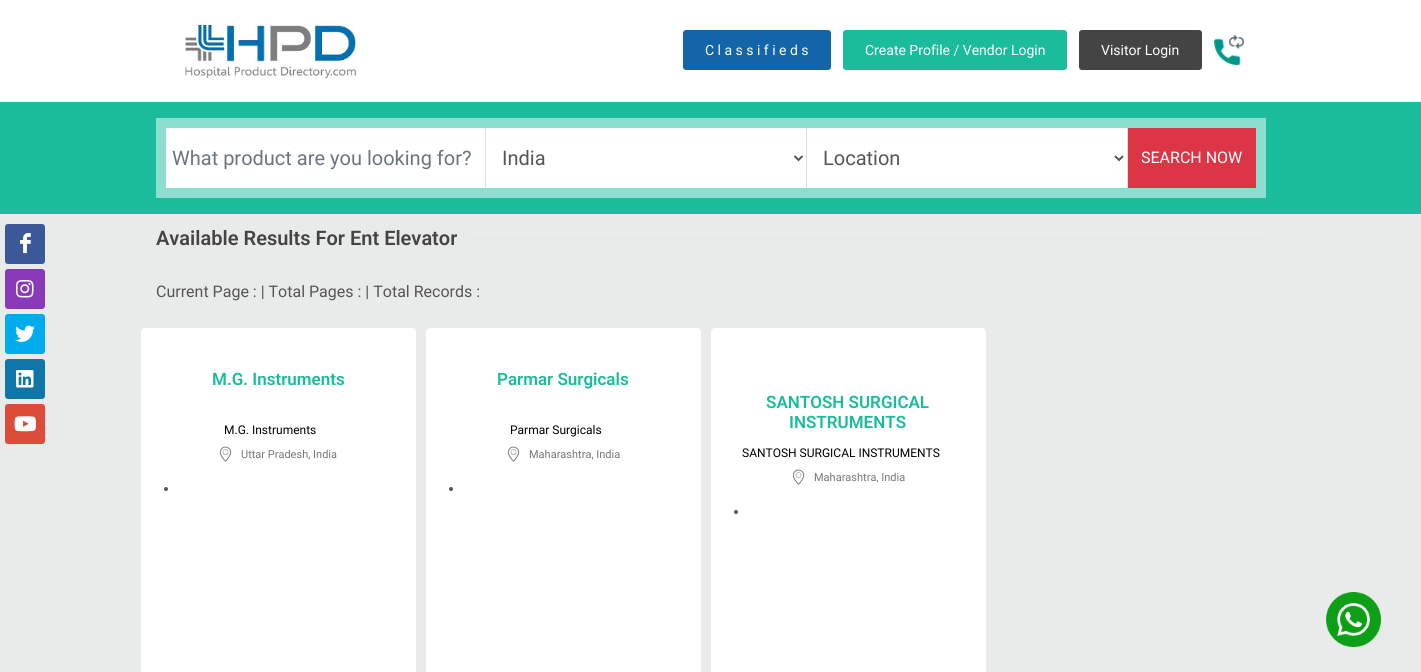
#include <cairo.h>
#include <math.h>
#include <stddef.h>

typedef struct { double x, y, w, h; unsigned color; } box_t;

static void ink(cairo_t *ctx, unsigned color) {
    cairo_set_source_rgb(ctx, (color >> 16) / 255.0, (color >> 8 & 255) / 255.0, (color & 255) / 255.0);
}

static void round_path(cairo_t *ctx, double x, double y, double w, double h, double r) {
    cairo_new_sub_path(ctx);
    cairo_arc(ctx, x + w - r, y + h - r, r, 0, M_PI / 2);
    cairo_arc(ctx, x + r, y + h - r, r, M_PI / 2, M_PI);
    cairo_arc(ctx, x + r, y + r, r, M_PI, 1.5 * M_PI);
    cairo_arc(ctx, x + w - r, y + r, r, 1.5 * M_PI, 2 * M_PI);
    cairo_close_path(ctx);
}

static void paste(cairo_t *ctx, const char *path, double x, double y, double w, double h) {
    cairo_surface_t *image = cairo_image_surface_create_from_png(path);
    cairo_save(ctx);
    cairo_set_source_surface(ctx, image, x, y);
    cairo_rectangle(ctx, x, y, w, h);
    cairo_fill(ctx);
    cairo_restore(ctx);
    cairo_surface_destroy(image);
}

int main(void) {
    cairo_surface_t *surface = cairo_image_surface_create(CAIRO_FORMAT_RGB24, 1421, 672);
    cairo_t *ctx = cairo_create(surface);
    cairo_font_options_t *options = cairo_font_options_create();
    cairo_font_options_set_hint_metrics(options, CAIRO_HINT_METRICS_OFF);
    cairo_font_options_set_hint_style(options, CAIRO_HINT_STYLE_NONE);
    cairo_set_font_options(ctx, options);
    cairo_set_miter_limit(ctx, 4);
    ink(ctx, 0xFFFFFF);
    cairo_paint(ctx);
    ink(ctx, 0xE9EAEA);
    cairo_rectangle(ctx, 0, 214, 1421, 458);
    cairo_fill(ctx);
    ink(ctx, 0x3B5998);
    round_path(ctx, 5, 224, 40, 40, 3);
    cairo_fill(ctx);
    paste(ctx, "media/1.png", 20, 233, 11, 21);
    ink(ctx, 0x8A3AB9);
    round_path(ctx, 5, 269, 40, 40, 3);
    cairo_fill(ctx);
    paste(ctx, "media/2.png", 16, 280, 18, 18);
    ink(ctx, 0x00ACEE);
    round_path(ctx, 5, 314, 40, 40, 3);
    cairo_fill(ctx);
    paste(ctx, "media/3.png", 15, 325, 20, 17);
    ink(ctx, 0x0E76A8);
    round_path(ctx, 5, 359, 40, 40, 3);
    cairo_fill(ctx);
    paste(ctx, "media/4.png", 16, 370, 18, 18);
    ink(ctx, 0xDD4B39);
    round_path(ctx, 5, 404, 40, 40, 3);
    cairo_fill(ctx);
    paste(ctx, "media/5.png", 14, 416, 22, 16);
    ink(ctx, 0xF5F5F5);
    cairo_rectangle(ctx, 0, 101, 1421, 1);
    cairo_fill(ctx);
    paste(ctx, "media/6.png", 185, 21, 172, 57);
    ink(ctx, 0x1265A8);
    round_path(ctx, 683, 30, 148, 40, 3);
    cairo_fill(ctx);
    cairo_select_font_face(ctx, "Roboto", CAIRO_FONT_SLANT_NORMAL, CAIRO_FONT_WEIGHT_NORMAL);
    cairo_set_font_size(ctx, 14);
    ink(ctx, 0xFFFFFF);
    cairo_move_to(ctx, 705, 55);
    cairo_show_text(ctx, "C l a s s i f i e d s");
    ink(ctx, 0x1ABC9C);
    round_path(ctx, 843, 30, 224, 40, 3);
    cairo_fill(ctx);
    ink(ctx, 0xFFFFFF);
    cairo_move_to(ctx, 865, 55);
    cairo_show_text(ctx, "Create Profile / Vendor Login");
    ink(ctx, 0x444444);
    round_path(ctx, 1079, 30, 123, 40, 3);
    cairo_fill(ctx);
    ink(ctx, 0xFFFFFF);
    cairo_move_to(ctx, 1101, 55);
    cairo_show_text(ctx, "Visitor Login");
    paste(ctx, "media/7.png", 1214, 35, 30, 30);
    {
        static const box_t items[] = {
            {0, 102, 1421, 112, 0x1ABC9C},
            {156, 118, 1110, 80, 0x8DDECE},
            {166, 128, 319, 60, 0xFFFFFF},
            {485, 128, 1, 60, 0xDDDDDD},
        };
        for (size_t i = 0; i < sizeof items / sizeof *items; i++) {
            ink(ctx, items[i].color);
            cairo_rectangle(ctx, items[i].x, items[i].y, items[i].w, items[i].h);
            cairo_fill(ctx);
        }
    }
    cairo_set_font_size(ctx, 20);
    ink(ctx, 0x6C757D);
    cairo_move_to(ctx, 172, 165);
    cairo_show_text(ctx, "What product are you looking for?");
    ink(ctx, 0xFFFFFF);
    cairo_rectangle(ctx, 486, 128, 320, 60);
    cairo_fill(ctx);
    ink(ctx, 0xDDDDDD);
    cairo_rectangle(ctx, 806, 128, 1, 60);
    cairo_fill(ctx);
    cairo_new_path(ctx);
    cairo_move_to(ctx, 794.5, 156);
    cairo_line_to(ctx, 798.5, 160);
    cairo_line_to(ctx, 802.5, 156);
    ink(ctx, 0x555555);
    cairo_stroke(ctx);
    cairo_move_to(ctx, 502, 165);
    cairo_show_text(ctx, "India");
    ink(ctx, 0xFFFFFF);
    cairo_rectangle(ctx, 807, 128, 320, 60);
    cairo_fill(ctx);
    ink(ctx, 0xDDDDDD);
    cairo_rectangle(ctx, 1127, 128, 1, 60);
    cairo_fill(ctx);
    cairo_new_path(ctx);
    cairo_move_to(ctx, 1115, 156);
    cairo_line_to(ctx, 1119, 160);
    cairo_line_to(ctx, 1123, 156);
    ink(ctx, 0x555555);
    cairo_stroke(ctx);
    cairo_move_to(ctx, 823, 165);
    cairo_show_text(ctx, "Location");
    ink(ctx, 0xDC3545);
    cairo_rectangle(ctx, 1128, 128, 128, 60);
    cairo_fill(ctx);
    cairo_set_font_size(ctx, 16);
    ink(ctx, 0xFFFFFF);
    cairo_move_to(ctx, 1141, 163);
    cairo_show_text(ctx, "SEARCH NOW");
    cairo_select_font_face(ctx, "Roboto SemiBold", CAIRO_FONT_SLANT_NORMAL, CAIRO_FONT_WEIGHT_NORMAL);
    cairo_set_font_size(ctx, 20);
    ink(ctx, 0x444444);
    cairo_move_to(ctx, 156, 245);
    cairo_show_text(ctx, "Available Results For Ent Elevator");
    ink(ctx, 0xE5E5E5);
    cairo_rectangle(ctx, 469, 238, 797, 1);
    cairo_fill(ctx);
    cairo_select_font_face(ctx, "Roboto", CAIRO_FONT_SLANT_NORMAL, CAIRO_FONT_WEIGHT_NORMAL);
    cairo_set_font_size(ctx, 16);
    ink(ctx, 0x555555);
    cairo_move_to(ctx, 156, 297);
    cairo_show_text(ctx, "Current Page : | Total Pages : | Total Records :");
    ink(ctx, 0xFFFFFF);
    round_path(ctx, 141, 328, 275, 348, 4);
    cairo_fill(ctx);
    cairo_select_font_face(ctx, "Roboto SemiBold", CAIRO_FONT_SLANT_NORMAL, CAIRO_FONT_WEIGHT_NORMAL);
    cairo_set_font_size(ctx, 17);
    ink(ctx, 0x1ABC9C);
    cairo_move_to(ctx, 212, 385);
    cairo_show_text(ctx, "M.G. Instruments");
    cairo_select_font_face(ctx, "Roboto", CAIRO_FONT_SLANT_NORMAL, CAIRO_FONT_WEIGHT_NORMAL);
    cairo_set_font_size(ctx, 12);
    ink(ctx, 0x000000);
    cairo_move_to(ctx, 224, 434);
    cairo_show_text(ctx, "M.G. Instruments");
    paste(ctx, "media/8.png", 219, 446, 13, 16);
    cairo_set_font_size(ctx, 11);
    ink(ctx, 0x777777);
    cairo_move_to(ctx, 241, 458);
    cairo_show_text(ctx, "Uttar Pradesh, India");
    ink(ctx, 0x555555);
    cairo_new_path(ctx);
    cairo_arc(ctx, 166, 489, 2, 0, 2 * M_PI);
    cairo_fill(ctx);
    ink(ctx, 0xFFFFFF);
    round_path(ctx, 426, 328, 275, 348, 4);
    cairo_fill(ctx);
    cairo_select_font_face(ctx, "Roboto SemiBold", CAIRO_FONT_SLANT_NORMAL, CAIRO_FONT_WEIGHT_NORMAL);
    cairo_set_font_size(ctx, 17);
    ink(ctx, 0x1ABC9C);
    cairo_move_to(ctx, 497, 385);
    cairo_show_text(ctx, "Parmar Surgicals");
    cairo_select_font_face(ctx, "Roboto", CAIRO_FONT_SLANT_NORMAL, CAIRO_FONT_WEIGHT_NORMAL);
    cairo_set_font_size(ctx, 12);
    ink(ctx, 0x000000);
    cairo_move_to(ctx, 510, 434);
    cairo_show_text(ctx, "Parmar Surgicals");
    paste(ctx, "media/8.png", 507, 446, 13, 16);
    cairo_set_font_size(ctx, 11);
    ink(ctx, 0x777777);
    cairo_move_to(ctx, 529, 458);
    cairo_show_text(ctx, "Maharashtra, India");
    ink(ctx, 0x555555);
    cairo_new_path(ctx);
    cairo_arc(ctx, 451, 489, 2, 0, 2 * M_PI);
    cairo_fill(ctx);
    ink(ctx, 0xFFFFFF);
    round_path(ctx, 711, 328, 275, 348, 4);
    cairo_fill(ctx);
    cairo_select_font_face(ctx, "Roboto SemiBold", CAIRO_FONT_SLANT_NORMAL, CAIRO_FONT_WEIGHT_NORMAL);
    cairo_set_font_size(ctx, 17);
    ink(ctx, 0x1ABC9C);
    cairo_move_to(ctx, 766, 408);
    cairo_show_text(ctx, "SANTOSH SURGICAL");
    cairo_move_to(ctx, 789, 428);
    cairo_show_text(ctx, "INSTRUMENTS");
    cairo_select_font_face(ctx, "Roboto", CAIRO_FONT_SLANT_NORMAL, CAIRO_FONT_WEIGHT_NORMAL);
    cairo_set_font_size(ctx, 12);
    ink(ctx, 0x000000);
    cairo_move_to(ctx, 742, 457);
    cairo_show_text(ctx, "SANTOSH SURGICAL INSTRUMENTS");
    paste(ctx, "media/8.png", 792, 469, 13, 16);
    cairo_set_font_size(ctx, 11);
    ink(ctx, 0x777777);
    cairo_move_to(ctx, 814, 481);
    cairo_show_text(ctx, "Maharashtra, India");
    ink(ctx, 0x555555);
    cairo_new_path(ctx);
    cairo_arc(ctx, 736, 512, 2, 0, 2 * M_PI);
    cairo_fill(ctx);
    paste(ctx, "media/9.png", 1326, 592, 55, 55);
    cairo_surface_write_to_png(surface, "image.png");
    cairo_font_options_destroy(options);
    cairo_destroy(ctx);
    cairo_surface_destroy(surface);
    return 0;
}
